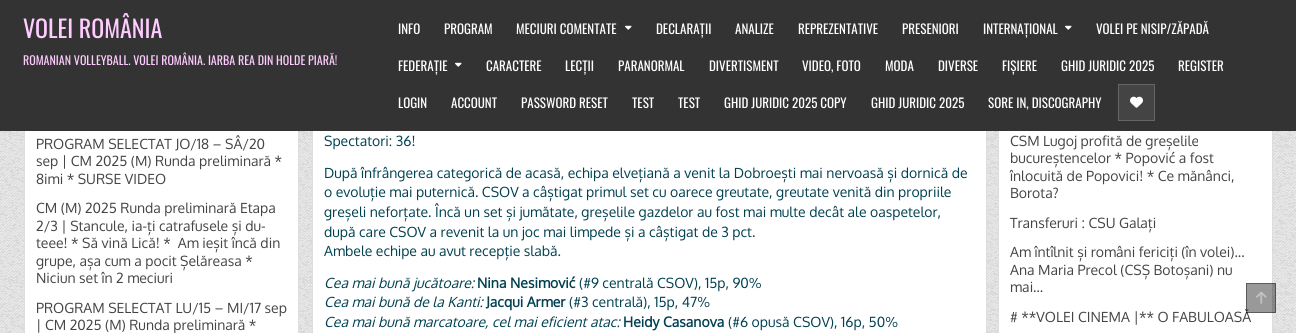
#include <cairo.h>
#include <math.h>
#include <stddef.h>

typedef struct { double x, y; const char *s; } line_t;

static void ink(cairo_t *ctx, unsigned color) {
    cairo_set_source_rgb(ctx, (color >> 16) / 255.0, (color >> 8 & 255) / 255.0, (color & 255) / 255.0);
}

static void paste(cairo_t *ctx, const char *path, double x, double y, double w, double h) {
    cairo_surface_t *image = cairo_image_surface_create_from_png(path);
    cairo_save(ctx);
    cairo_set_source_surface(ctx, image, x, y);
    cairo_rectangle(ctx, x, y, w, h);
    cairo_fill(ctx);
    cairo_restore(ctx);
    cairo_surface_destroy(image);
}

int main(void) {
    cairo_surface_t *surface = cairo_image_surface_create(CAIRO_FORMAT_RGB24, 1296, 333);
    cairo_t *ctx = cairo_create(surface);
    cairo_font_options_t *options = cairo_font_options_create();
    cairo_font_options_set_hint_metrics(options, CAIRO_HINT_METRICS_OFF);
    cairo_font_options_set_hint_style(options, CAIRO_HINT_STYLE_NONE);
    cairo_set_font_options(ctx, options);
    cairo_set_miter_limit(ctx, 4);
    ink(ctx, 0xFFFFFF);
    cairo_paint(ctx);
    paste(ctx, "media/1.png", 0, 131, 1296, 202);
    ink(ctx, 0xFFFFFF);
    cairo_rectangle(ctx, 25, 131, 273, 202);
    cairo_fill(ctx);
    cairo_rectangle(ctx, 24.5, -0.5, 274, 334);
    ink(ctx, 0xDDDDDD);
    cairo_set_line_width(ctx, 1);
    cairo_stroke(ctx);
    ink(ctx, 0xFFFFFF);
    cairo_rectangle(ctx, 313, 131, 673, 202);
    cairo_fill(ctx);
    cairo_rectangle(ctx, 312.5, -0.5, 674, 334);
    ink(ctx, 0xDDDDDD);
    cairo_stroke(ctx);
    ink(ctx, 0xFFFFFF);
    cairo_rectangle(ctx, 999, 131, 273, 202);
    cairo_fill(ctx);
    cairo_rectangle(ctx, 998.5, -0.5, 274, 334);
    ink(ctx, 0xDDDDDD);
    cairo_stroke(ctx);
    ink(ctx, 0x333333);
    cairo_rectangle(ctx, 0, 0, 1296, 131);
    cairo_fill(ctx);
    cairo_select_font_face(ctx, "Oswald", CAIRO_FONT_SLANT_NORMAL, CAIRO_FONT_WEIGHT_NORMAL);
    cairo_set_font_size(ctx, 24);
    ink(ctx, 0xFFCCFF);
    cairo_move_to(ctx, 23, 38);
    cairo_show_text(ctx, "VOLEI ROMÂNIA");
    cairo_set_font_size(ctx, 12);
    cairo_move_to(ctx, 23, 65);
    cairo_show_text(ctx, "ROMANIAN VOLLEYBALL. VOLEI ROMÂNIA. IARBA REA DIN HOLDE PIARĂ!");
    cairo_set_font_size(ctx, 13);
    ink(ctx, 0xFFFFFF);
    {
        static const line_t items[] = {
            {398, 34, "INFO"},
            {444, 34, "PROGRAM"},
            {516, 34, "MECIURI COMENTATE"},
        };
        for (size_t i = 0; i < sizeof items / sizeof *items; i++) {
            cairo_move_to(ctx, items[i].x, items[i].y);
            cairo_show_text(ctx, items[i].s);
        }
    }
    paste(ctx, "media/2.png", 625, 25, 7, 5);
    {
        static const line_t items[] = {
            {656, 34, "DECLARAȚII"},
            {735, 34, "ANALIZE"},
            {798, 34, "REPREZENTATIVE"},
            {902, 34, "PRESENIORI"},
            {983, 34, "INTERNAȚIONAL"},
        };
        for (size_t i = 0; i < sizeof items / sizeof *items; i++) {
            cairo_move_to(ctx, items[i].x, items[i].y);
            cairo_show_text(ctx, items[i].s);
        }
    }
    paste(ctx, "media/2.png", 1065, 25, 7, 5);
    cairo_move_to(ctx, 1096, 34);
    cairo_show_text(ctx, "VOLEI PE NISIP/ZĂPADĂ");
    cairo_move_to(ctx, 398, 71);
    cairo_show_text(ctx, "FEDERAȚIE");
    paste(ctx, "media/2.png", 455, 62, 7, 5);
    {
        static const line_t items[] = {
            {486, 71, "CARACTERE"},
            {565, 71, "LECȚII"},
            {618, 71, "PARANORMAL"},
            {709, 71, "DIVERTISMENT"},
            {802, 71, "VIDEO, FOTO"},
            {885, 71, "MODA"},
            {938, 71, "DIVERSE"},
            {1002, 71, "FIȘIERE"},
            {1061, 71, "GHID JURIDIC 2025"},
            {1178, 71, "REGISTER"},
            {398, 108, "LOGIN"},
            {451, 108, "ACCOUNT"},
            {521, 108, "PASSWORD RESET"},
            {632, 108, "TEST"},
            {678, 108, "TEST"},
            {724, 108, "GHID JURIDIC 2025 COPY"},
            {871, 108, "GHID JURIDIC 2025"},
            {988, 108, "SORE IN, DISCOGRAPHY"},
        };
        for (size_t i = 0; i < sizeof items / sizeof *items; i++) {
            cairo_move_to(ctx, items[i].x, items[i].y);
            cairo_show_text(ctx, items[i].s);
        }
    }
    ink(ctx, 0x444444);
    cairo_rectangle(ctx, 1118.5, 84.5, 36, 36);
    cairo_fill_preserve(ctx);
    ink(ctx, 0x666666);
    cairo_stroke(ctx);
    paste(ctx, "media/3.png", 1130, 96, 13, 12);
    cairo_select_font_face(ctx, "Oxygen", CAIRO_FONT_SLANT_NORMAL, CAIRO_FONT_WEIGHT_NORMAL);
    cairo_set_font_size(ctx, 14);
    ink(ctx, 0x444444);
    {
        static const line_t items[] = {
            {36, 149, "PROGRAM SELECTAT JO/18 – SÂ/20"},
            {36, 166, "sep | CM 2025 (M) Runda preliminară *"},
            {36, 184, "8imi * SURSE VIDEO"},
            {36, 213, "CM (M) 2025 Runda preliminară Etapa"},
            {36, 231, "2/3 | Stancule, ia-ți catrafusele și du-"},
            {36, 248, "teee! * Să vină Lică! *  Am ieșit încă din"},
            {36, 266, "grupe, așa cum a pocit Șelăreasa *"},
            {36, 283, "Niciun set în 2 meciuri"},
            {36, 313, "PROGRAM SELECTAT LU/15 – MI/17 sep"},
            {36, 330, "| CM 2025 (M) Runda preliminară *"},
        };
        for (size_t i = 0; i < sizeof items / sizeof *items; i++) {
            cairo_move_to(ctx, items[i].x, items[i].y);
            cairo_show_text(ctx, items[i].s);
        }
    }
    ink(ctx, 0x004050);
    {
        static const line_t items[] = {
            {324, 146, "Spectatori: 36!"},
            {324, 178, "După înfrângerea categorică de acasă, echipa elvețiană a venit la Dobroești mai nervoasă și dornică de"},
            {324, 197, "o evoluție mai puternică. CSOV a câștigat primul set cu oarece greutate, greutate venită din propriile"},
            {324, 217, "greșeli neforțate. Încă un set și jumătate, greșelile gazdelor au fost mai multe decât ale oaspetelor,"},
            {324, 237, "după care CSOV a revenit la un joc mai limpede și a câștigat de 3 pct."},
            {324, 256, "Ambele echipe au avut recepție slabă."},
        };
        for (size_t i = 0; i < sizeof items / sizeof *items; i++) {
            cairo_move_to(ctx, items[i].x, items[i].y);
            cairo_show_text(ctx, items[i].s);
        }
    }
    cairo_select_font_face(ctx, "Oxygen", CAIRO_FONT_SLANT_ITALIC, CAIRO_FONT_WEIGHT_NORMAL);
    cairo_move_to(ctx, 324, 288);
    cairo_show_text(ctx, "Cea mai bună jucătoare:");
    cairo_select_font_face(ctx, "Oxygen", CAIRO_FONT_SLANT_NORMAL, CAIRO_FONT_WEIGHT_BOLD);
    cairo_move_to(ctx, 477, 288);
    cairo_show_text(ctx, "Nina Nesimović");
    cairo_select_font_face(ctx, "Oxygen", CAIRO_FONT_SLANT_NORMAL, CAIRO_FONT_WEIGHT_NORMAL);
    cairo_move_to(ctx, 579, 288);
    cairo_show_text(ctx, "(#9 centrală CSOV), 15p, 90%");
    cairo_select_font_face(ctx, "Oxygen", CAIRO_FONT_SLANT_ITALIC, CAIRO_FONT_WEIGHT_NORMAL);
    cairo_move_to(ctx, 324, 307);
    cairo_show_text(ctx, "Cea mai bună de la Kanti:");
    cairo_select_font_face(ctx, "Oxygen", CAIRO_FONT_SLANT_NORMAL, CAIRO_FONT_WEIGHT_BOLD);
    cairo_move_to(ctx, 486, 307);
    cairo_show_text(ctx, "Jacqui Armer");
    cairo_select_font_face(ctx, "Oxygen", CAIRO_FONT_SLANT_NORMAL, CAIRO_FONT_WEIGHT_NORMAL);
    cairo_move_to(ctx, 569, 307);
    cairo_show_text(ctx, "(#3 centrală), 15p, 47%");
    cairo_select_font_face(ctx, "Oxygen", CAIRO_FONT_SLANT_ITALIC, CAIRO_FONT_WEIGHT_NORMAL);
    cairo_move_to(ctx, 324, 327);
    cairo_show_text(ctx, "Cea mai bună marcatoare, cel mai eficient atac:");
    cairo_select_font_face(ctx, "Oxygen", CAIRO_FONT_SLANT_NORMAL, CAIRO_FONT_WEIGHT_BOLD);
    cairo_move_to(ctx, 623, 327);
    cairo_show_text(ctx, "Heidy Casanova");
    cairo_select_font_face(ctx, "Oxygen", CAIRO_FONT_SLANT_NORMAL, CAIRO_FONT_WEIGHT_NORMAL);
    cairo_move_to(ctx, 728, 327);
    cairo_show_text(ctx, "(#6 opusă CSOV), 16p, 50%");
    ink(ctx, 0x444444);
    {
        static const line_t items[] = {
            {1010, 146, "CSM Lugoj profită de greșelile"},
            {1010, 163, "bucureștencelor * Popović a fost"},
            {1010, 181, "înlocuită de Popovici! * Ce mănânci,"},
            {1010, 198, "Borota?"},
            {1010, 228, "Transferuri : CSU Galați"},
            {1010, 257, "Am întîlnit și români fericiți (în volei)..."},
            {1010, 275, "Ana Maria Precol (CSȘ Botoșani) nu"},
            {1010, 292, "mai…"},
            {1010, 322, "# **VOLEI CINEMA |** O FABULOASĂ"},
        };
        for (size_t i = 0; i < sizeof items / sizeof *items; i++) {
            cairo_move_to(ctx, items[i].x, items[i].y);
            cairo_show_text(ctx, items[i].s);
        }
    }
    cairo_set_source_rgba(ctx, 0, 0, 0, 0.4);
    cairo_rectangle(ctx, 1246, 283, 30, 30);
    cairo_fill(ctx);
    cairo_rectangle(ctx, 1246.5, 283.5, 29, 29);
    cairo_stroke(ctx);
    paste(ctx, "media/4.png", 1256, 291, 11, 13);
    cairo_surface_write_to_png(surface, "image.png");
    cairo_font_options_destroy(options);
    cairo_destroy(ctx);
    cairo_surface_destroy(surface);
    return 0;
}
